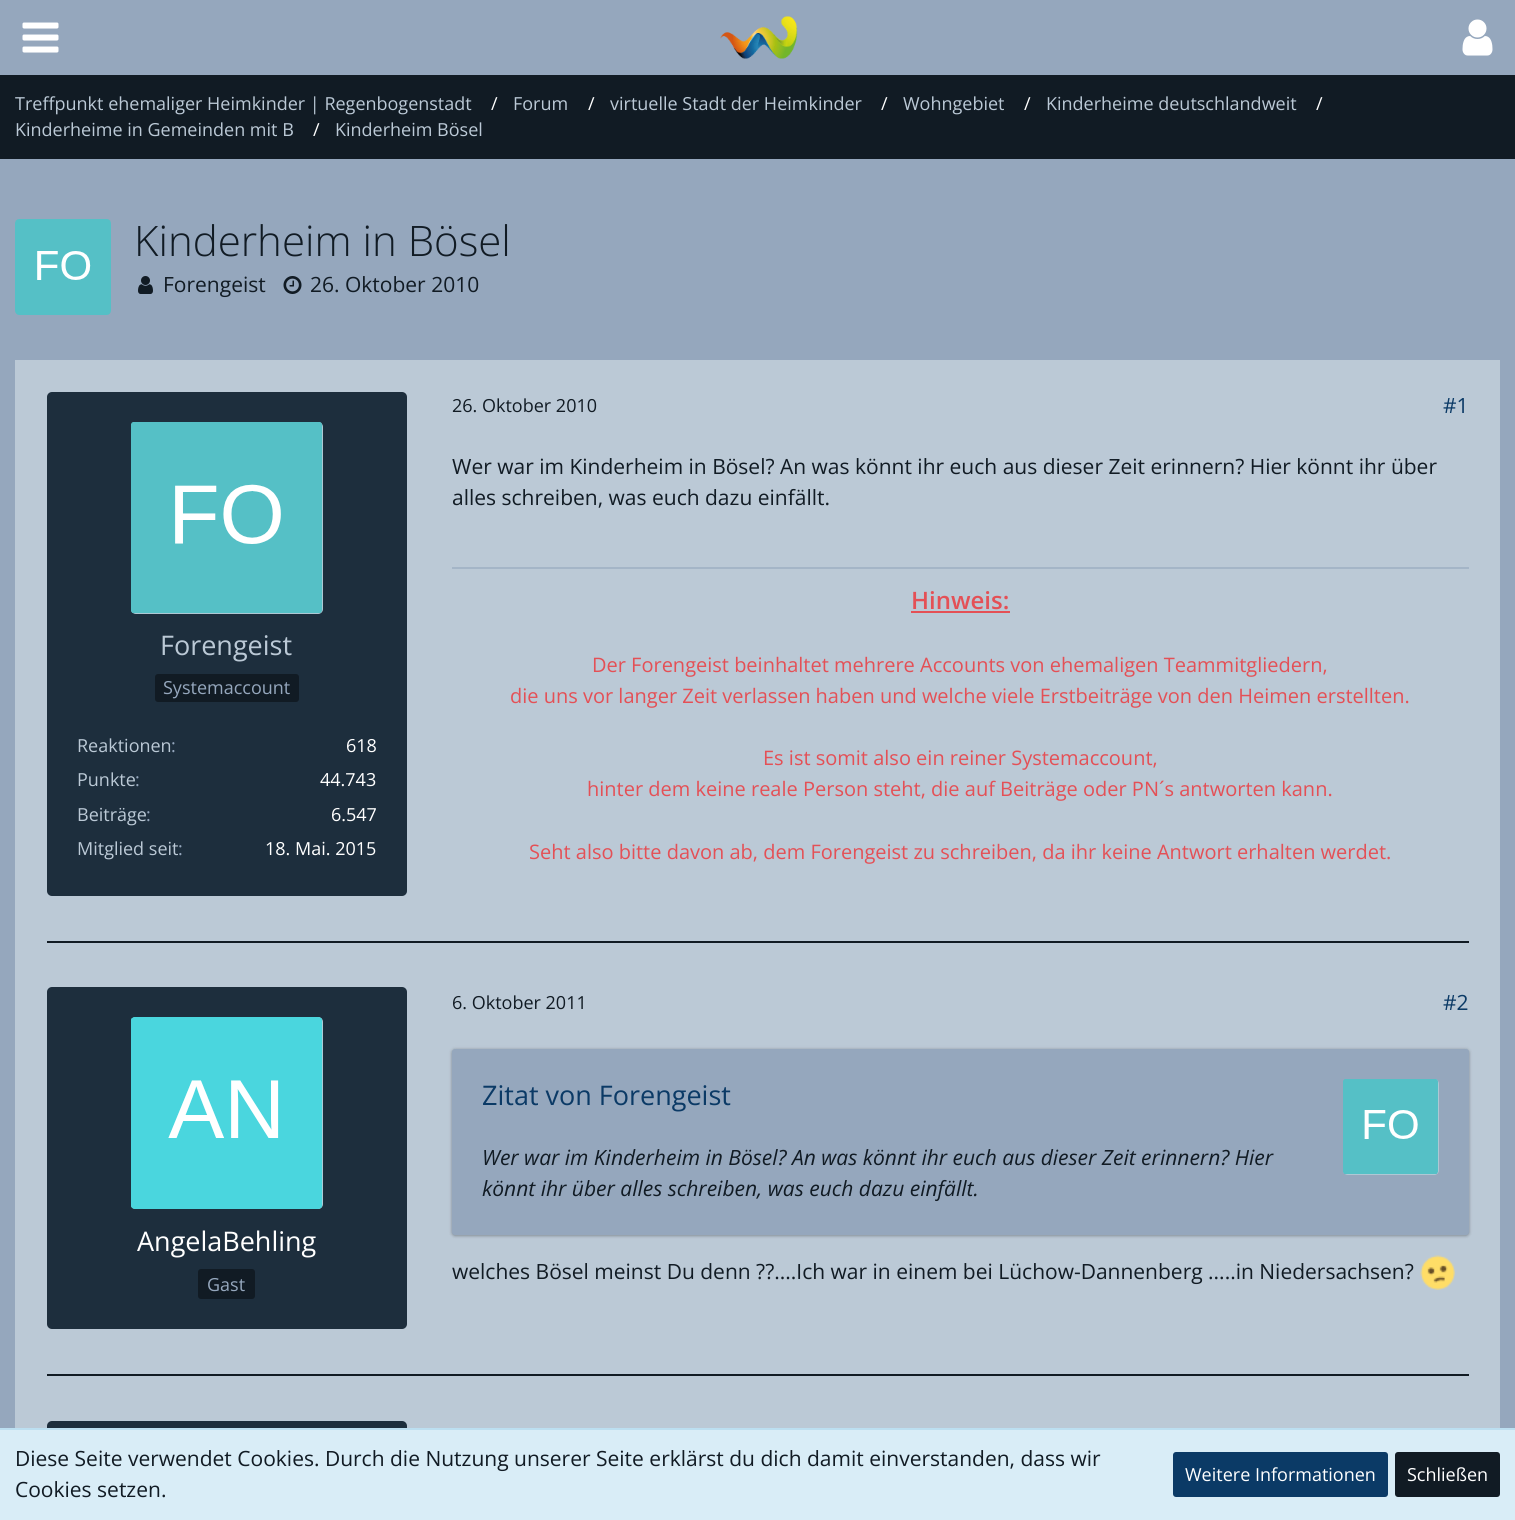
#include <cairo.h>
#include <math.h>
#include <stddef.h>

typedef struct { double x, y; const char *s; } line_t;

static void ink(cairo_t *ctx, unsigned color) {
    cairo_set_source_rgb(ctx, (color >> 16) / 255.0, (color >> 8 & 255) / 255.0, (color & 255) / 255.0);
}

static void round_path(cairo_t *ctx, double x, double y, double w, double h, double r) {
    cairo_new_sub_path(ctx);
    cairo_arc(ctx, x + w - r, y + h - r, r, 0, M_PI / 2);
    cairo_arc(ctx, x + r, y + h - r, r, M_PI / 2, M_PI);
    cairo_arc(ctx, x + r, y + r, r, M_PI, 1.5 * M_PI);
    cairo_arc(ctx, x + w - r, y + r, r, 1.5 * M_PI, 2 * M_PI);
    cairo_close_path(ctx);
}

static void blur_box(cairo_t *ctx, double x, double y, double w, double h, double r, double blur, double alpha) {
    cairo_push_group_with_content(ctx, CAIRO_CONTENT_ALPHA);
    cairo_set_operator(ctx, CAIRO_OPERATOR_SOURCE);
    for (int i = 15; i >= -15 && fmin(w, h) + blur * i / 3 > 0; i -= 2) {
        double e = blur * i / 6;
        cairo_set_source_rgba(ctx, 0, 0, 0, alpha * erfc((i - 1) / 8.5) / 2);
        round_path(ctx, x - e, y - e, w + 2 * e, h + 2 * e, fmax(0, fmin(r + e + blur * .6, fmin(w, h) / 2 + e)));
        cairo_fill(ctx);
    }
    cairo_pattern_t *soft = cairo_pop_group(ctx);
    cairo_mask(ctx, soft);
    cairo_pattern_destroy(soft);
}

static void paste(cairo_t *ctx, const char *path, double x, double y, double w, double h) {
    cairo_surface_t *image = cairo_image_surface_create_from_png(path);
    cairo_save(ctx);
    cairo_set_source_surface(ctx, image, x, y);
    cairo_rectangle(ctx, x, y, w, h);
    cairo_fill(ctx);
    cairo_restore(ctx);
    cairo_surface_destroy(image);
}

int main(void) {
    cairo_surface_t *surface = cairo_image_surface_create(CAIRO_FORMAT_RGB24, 1515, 1520);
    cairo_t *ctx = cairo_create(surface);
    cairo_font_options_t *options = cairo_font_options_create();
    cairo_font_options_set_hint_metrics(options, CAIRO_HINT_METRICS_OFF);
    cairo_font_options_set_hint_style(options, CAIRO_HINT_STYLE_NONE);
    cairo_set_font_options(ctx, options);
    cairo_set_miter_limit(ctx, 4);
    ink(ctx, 0x95A7BD);
    cairo_paint(ctx);
    paste(ctx, "media/1.png", 720, 16, 78, 43);
    paste(ctx, "media/2.png", 22, 22, 37, 31);
    paste(ctx, "media/3.png", 1462, 19, 31, 37);
    ink(ctx, 0x111B24);
    cairo_rectangle(ctx, 0, 75, 1515, 84);
    cairo_fill(ctx);
    cairo_select_font_face(ctx, "Open Sans", CAIRO_FONT_SLANT_NORMAL, CAIRO_FONT_WEIGHT_NORMAL);
    cairo_set_font_size(ctx, 18);
    ink(ctx, 0xBBC9D6);
    cairo_move_to(ctx, 15, 110);
    cairo_show_text(ctx, "Treffpunkt ehemaliger Heimkinder | Regenbogenstadt");
    ink(ctx, 0xFFFFFF);
    cairo_move_to(ctx, 491, 110);
    cairo_show_text(ctx, "/");
    ink(ctx, 0xBBC9D6);
    cairo_move_to(ctx, 513, 110);
    cairo_show_text(ctx, "Forum");
    ink(ctx, 0xFFFFFF);
    cairo_move_to(ctx, 588, 110);
    cairo_show_text(ctx, "/");
    ink(ctx, 0xBBC9D6);
    cairo_move_to(ctx, 610, 110);
    cairo_show_text(ctx, "virtuelle Stadt der Heimkinder");
    ink(ctx, 0xFFFFFF);
    cairo_move_to(ctx, 881, 110);
    cairo_show_text(ctx, "/");
    ink(ctx, 0xBBC9D6);
    cairo_move_to(ctx, 903, 110);
    cairo_show_text(ctx, "Wohngebiet");
    ink(ctx, 0xFFFFFF);
    cairo_move_to(ctx, 1024, 110);
    cairo_show_text(ctx, "/");
    ink(ctx, 0xBBC9D6);
    cairo_move_to(ctx, 1046, 110);
    cairo_show_text(ctx, "Kinderheime deutschlandweit");
    ink(ctx, 0xFFFFFF);
    cairo_move_to(ctx, 1316, 110);
    cairo_show_text(ctx, "/");
    ink(ctx, 0xBBC9D6);
    cairo_move_to(ctx, 15, 136);
    cairo_show_text(ctx, "Kinderheime in Gemeinden mit B");
    ink(ctx, 0xFFFFFF);
    cairo_move_to(ctx, 313, 136);
    cairo_show_text(ctx, "/");
    ink(ctx, 0xBBC9D6);
    cairo_move_to(ctx, 335, 136);
    cairo_show_text(ctx, "Kinderheim Bösel");
    paste(ctx, "media/4.png", 15, 219, 96, 96);
    cairo_select_font_face(ctx, "Open Sans Light", CAIRO_FONT_SLANT_NORMAL, CAIRO_FONT_WEIGHT_NORMAL);
    cairo_set_font_size(ctx, 42);
    ink(ctx, 0x111B24);
    cairo_move_to(ctx, 134, 256);
    cairo_show_text(ctx, "Kinderheim in Bösel");
    paste(ctx, "media/5.png", 138, 276, 15, 18);
    cairo_select_font_face(ctx, "Open Sans", CAIRO_FONT_SLANT_NORMAL, CAIRO_FONT_WEIGHT_NORMAL);
    cairo_set_font_size(ctx, 21);
    cairo_move_to(ctx, 163, 292);
    cairo_show_text(ctx, "Forengeist");
    paste(ctx, "media/6.png", 283, 276, 19, 18);
    cairo_move_to(ctx, 310, 292);
    cairo_show_text(ctx, "26. Oktober 2010");
    ink(ctx, 0xBBC9D6);
    cairo_rectangle(ctx, 15, 360, 1485, 1068);
    cairo_fill(ctx);
    ink(ctx, 0x111B24);
    cairo_rectangle(ctx, 47, 941, 1422, 2);
    cairo_fill(ctx);
    ink(ctx, 0x1D2E3D);
    round_path(ctx, 47, 392, 360, 504, 5);
    cairo_fill(ctx);
    ink(ctx, 0xBBC9D6);
    round_path(ctx, 131, 422, 192, 192, 5);
    cairo_fill(ctx);
    paste(ctx, "media/7.png", 131, 422, 192, 192);
    cairo_set_font_size(ctx, 27);
    cairo_move_to(ctx, 160, 655);
    cairo_show_text(ctx, "Forengeist");
    ink(ctx, 0x111B24);
    round_path(ctx, 155, 674, 144, 28, 3);
    cairo_fill(ctx);
    cairo_set_font_size(ctx, 18);
    ink(ctx, 0x95A7BD);
    cairo_move_to(ctx, 163, 694);
    cairo_show_text(ctx, "Systemaccount");
    ink(ctx, 0xBBC9D6);
    cairo_move_to(ctx, 77, 752);
    cairo_show_text(ctx, "Reaktionen");
    ink(ctx, 0x95A7BD);
    cairo_move_to(ctx, 171, 752);
    cairo_show_text(ctx, ":");
    ink(ctx, 0xFFFFFF);
    cairo_move_to(ctx, 346, 752);
    cairo_show_text(ctx, "618");
    ink(ctx, 0xBBC9D6);
    cairo_move_to(ctx, 77, 786);
    cairo_show_text(ctx, "Punkte");
    ink(ctx, 0x95A7BD);
    cairo_move_to(ctx, 135, 786);
    cairo_show_text(ctx, ":");
    ink(ctx, 0xFFFFFF);
    cairo_move_to(ctx, 320, 786);
    cairo_show_text(ctx, "44.743");
    ink(ctx, 0xBBC9D6);
    cairo_move_to(ctx, 77, 821);
    cairo_show_text(ctx, "Beiträge");
    ink(ctx, 0x95A7BD);
    cairo_move_to(ctx, 146, 821);
    cairo_show_text(ctx, ":");
    ink(ctx, 0xFFFFFF);
    cairo_move_to(ctx, 331, 821);
    cairo_show_text(ctx, "6.547");
    ink(ctx, 0xBBC9D6);
    cairo_move_to(ctx, 77, 855);
    cairo_show_text(ctx, "Mitglied seit");
    ink(ctx, 0x95A7BD);
    cairo_move_to(ctx, 178, 855);
    cairo_show_text(ctx, ":");
    ink(ctx, 0xFFFFFF);
    cairo_move_to(ctx, 265, 855);
    cairo_show_text(ctx, "18. Mai. 2015");
    ink(ctx, 0x111B24);
    cairo_move_to(ctx, 452, 412);
    cairo_show_text(ctx, "26. Oktober 2010");
    cairo_set_font_size(ctx, 21);
    ink(ctx, 0x0B3A66);
    cairo_move_to(ctx, 1443, 413);
    cairo_show_text(ctx, "#1");
    ink(ctx, 0x111B24);
    cairo_move_to(ctx, 452, 474);
    cairo_show_text(ctx, "Wer war im Kinderheim in Bösel? An was könnt ihr euch aus dieser Zeit erinnern? Hier könnt ihr über");
    cairo_move_to(ctx, 452, 505);
    cairo_show_text(ctx, "alles schreiben, was euch dazu einfällt.");
    ink(ctx, 0xA4B5C7);
    cairo_rectangle(ctx, 452, 567, 1017, 2);
    cairo_fill(ctx);
    cairo_select_font_face(ctx, "Open Sans SemiBold", CAIRO_FONT_SLANT_NORMAL, CAIRO_FONT_WEIGHT_NORMAL);
    cairo_set_font_size(ctx, 24);
    ink(ctx, 0xE45056);
    cairo_move_to(ctx, 911, 609);
    cairo_show_text(ctx, "Hinweis:");
    cairo_rectangle(ctx, 911, 611, 99, 2);
    cairo_fill(ctx);
    cairo_select_font_face(ctx, "Open Sans", CAIRO_FONT_SLANT_NORMAL, CAIRO_FONT_WEIGHT_NORMAL);
    cairo_set_font_size(ctx, 20);
    {
        static const line_t items[] = {
            {592, 672, "Der Forengeist beinhaltet mehrere Accounts von ehemaligen Teammitgliedern,"},
            {510, 703, "die uns vor langer Zeit verlassen haben und welche viele Erstbeiträge von den Heimen erstellten."},
            {763, 765, "Es ist somit also ein reiner Systemaccount,"},
            {587, 796, "hinter dem keine reale Person steht, die auf Beiträge oder PN´s antworten kann."},
            {529, 859, "Seht also bitte davon ab, dem Forengeist zu schreiben, da ihr keine Antwort erhalten werdet."},
        };
        for (size_t i = 0; i < sizeof items / sizeof *items; i++) {
            cairo_move_to(ctx, items[i].x, items[i].y);
            cairo_show_text(ctx, items[i].s);
        }
    }
    ink(ctx, 0x111B24);
    cairo_rectangle(ctx, 47, 1374, 1422, 2);
    cairo_fill(ctx);
    ink(ctx, 0x1D2E3D);
    round_path(ctx, 47, 987, 360, 342, 5);
    cairo_fill(ctx);
    ink(ctx, 0xBBC9D6);
    round_path(ctx, 131, 1017, 192, 192, 5);
    cairo_fill(ctx);
    paste(ctx, "media/8.png", 131, 1017, 192, 192);
    cairo_set_font_size(ctx, 27);
    ink(ctx, 0xFFFFFF);
    cairo_move_to(ctx, 137, 1251);
    cairo_show_text(ctx, "AngelaBehling");
    ink(ctx, 0x111B24);
    round_path(ctx, 198, 1269, 57, 30, 3);
    cairo_fill(ctx);
    cairo_set_font_size(ctx, 18);
    ink(ctx, 0x95A7BD);
    cairo_move_to(ctx, 207, 1291);
    cairo_show_text(ctx, "Gast");
    ink(ctx, 0x111B24);
    cairo_move_to(ctx, 452, 1009);
    cairo_show_text(ctx, "6. Oktober 2011");
    cairo_set_font_size(ctx, 21);
    ink(ctx, 0x0B3A66);
    cairo_move_to(ctx, 1443, 1010);
    cairo_show_text(ctx, "#2");
    ink(ctx, 0x000000);
    blur_box(ctx, 452, 1050, 1017, 186, 3, 1.5, 0.24);
    blur_box(ctx, 452, 1049, 1017, 186, 3, 2, 0.12);
    ink(ctx, 0x95A7BD);
    round_path(ctx, 452, 1049, 1017, 186, 3);
    cairo_fill(ctx);
    cairo_set_font_size(ctx, 27);
    ink(ctx, 0x0B3A66);
    cairo_move_to(ctx, 482, 1105);
    cairo_show_text(ctx, "Zitat von Forengeist");
    ink(ctx, 0xBBC9D6);
    round_path(ctx, 1343, 1079, 96, 96, 5);
    cairo_fill(ctx);
    paste(ctx, "media/9.png", 1343, 1079, 96, 96);
    cairo_select_font_face(ctx, "Open Sans", CAIRO_FONT_SLANT_ITALIC, CAIRO_FONT_WEIGHT_NORMAL);
    cairo_set_font_size(ctx, 21);
    ink(ctx, 0x111B24);
    cairo_move_to(ctx, 482, 1165);
    cairo_show_text(ctx, "Wer war im Kinderheim in Bösel? An was könnt ihr euch aus dieser Zeit erinnern? Hier");
    cairo_move_to(ctx, 482, 1196);
    cairo_show_text(ctx, "könnt ihr über alles schreiben, was euch dazu einfällt.");
    cairo_select_font_face(ctx, "Open Sans", CAIRO_FONT_SLANT_NORMAL, CAIRO_FONT_WEIGHT_NORMAL);
    cairo_move_to(ctx, 452, 1279);
    cairo_show_text(ctx, "welches Bösel meinst Du denn ?\077....Ich war in einem bei Lüchow-Dannenberg .....in Niedersachsen?");
    paste(ctx, "media/10.png", 1420, 1255, 35, 35);
    ink(ctx, 0x1D2E3D);
    round_path(ctx, 47, 1421, 360, 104, 5);
    cairo_fill(ctx);
    ink(ctx, 0xD9EDF7);
    cairo_rectangle(ctx, 0, 1430, 1515, 90);
    cairo_fill(ctx);
    ink(ctx, 0xBCDFF1);
    cairo_rectangle(ctx, 0, 1428, 1515, 2);
    cairo_fill(ctx);
    ink(ctx, 0x111B24);
    cairo_move_to(ctx, 15, 1466);
    cairo_show_text(ctx, "Diese Seite verwendet Cookies. Durch die Nutzung unserer Seite erklärst du dich damit einverstanden, dass wir");
    cairo_move_to(ctx, 15, 1497);
    cairo_show_text(ctx, "Cookies setzen.");
    ink(ctx, 0x0B3A66);
    round_path(ctx, 1173, 1452, 215, 45, 3);
    cairo_fill(ctx);
    cairo_set_font_size(ctx, 18);
    ink(ctx, 0xFFFFFF);
    cairo_move_to(ctx, 1185, 1481);
    cairo_show_text(ctx, "Weitere Informationen");
    ink(ctx, 0x111B24);
    round_path(ctx, 1395, 1452, 105, 45, 3);
    cairo_fill(ctx);
    ink(ctx, 0xFFFFFF);
    cairo_move_to(ctx, 1407, 1481);
    cairo_show_text(ctx, "Schließen");
    cairo_surface_write_to_png(surface, "image.png");
    cairo_font_options_destroy(options);
    cairo_destroy(ctx);
    cairo_surface_destroy(surface);
    return 0;
}
